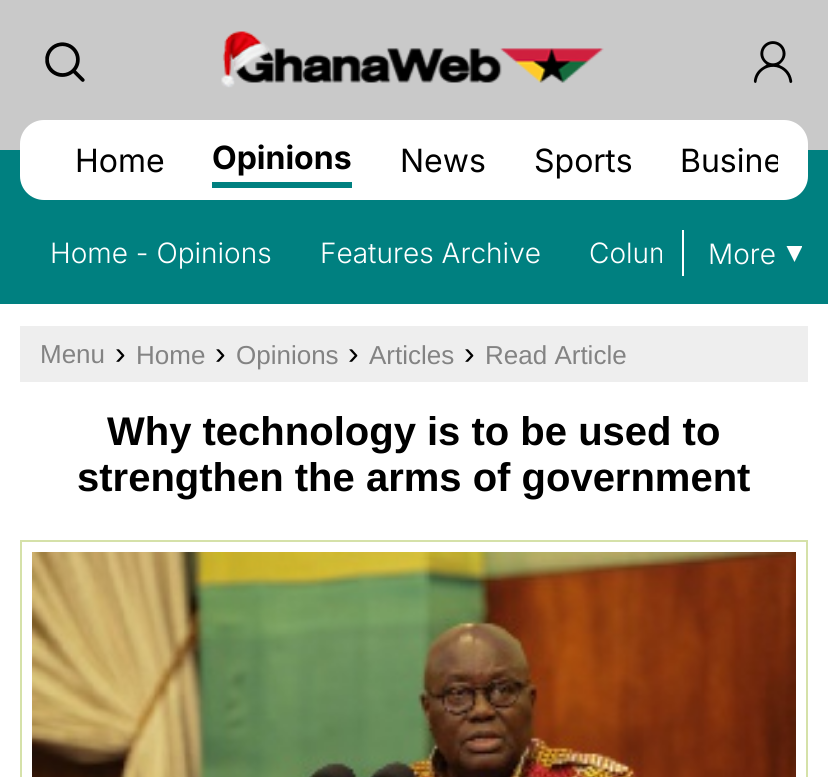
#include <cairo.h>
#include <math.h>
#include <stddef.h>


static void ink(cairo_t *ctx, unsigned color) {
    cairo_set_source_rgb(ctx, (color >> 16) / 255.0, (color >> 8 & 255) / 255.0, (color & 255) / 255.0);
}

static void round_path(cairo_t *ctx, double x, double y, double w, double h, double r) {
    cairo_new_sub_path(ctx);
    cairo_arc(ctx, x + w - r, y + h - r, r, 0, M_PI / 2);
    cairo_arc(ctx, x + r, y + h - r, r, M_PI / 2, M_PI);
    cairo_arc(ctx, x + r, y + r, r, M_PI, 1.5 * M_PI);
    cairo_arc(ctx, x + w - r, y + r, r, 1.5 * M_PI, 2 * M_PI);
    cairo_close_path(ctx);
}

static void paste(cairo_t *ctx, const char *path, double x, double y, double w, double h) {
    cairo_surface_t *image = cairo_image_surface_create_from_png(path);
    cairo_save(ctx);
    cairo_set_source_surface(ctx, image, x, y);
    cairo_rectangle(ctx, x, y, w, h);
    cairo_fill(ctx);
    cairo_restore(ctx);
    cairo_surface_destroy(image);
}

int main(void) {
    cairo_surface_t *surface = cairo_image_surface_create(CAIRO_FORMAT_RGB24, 828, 777);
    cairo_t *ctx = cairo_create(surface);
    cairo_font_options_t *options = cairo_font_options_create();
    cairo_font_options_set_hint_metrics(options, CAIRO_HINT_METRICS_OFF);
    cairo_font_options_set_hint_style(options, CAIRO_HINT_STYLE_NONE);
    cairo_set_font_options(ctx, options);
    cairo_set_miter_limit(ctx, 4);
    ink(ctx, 0xFFFFFF);
    cairo_paint(ctx);
    ink(ctx, 0xC9C9C9);
    cairo_rectangle(ctx, 0, 0, 828, 150);
    cairo_fill(ctx);
    paste(ctx, "media/1.png", 45, 42, 40, 40);
    paste(ctx, "media/2.png", 221, 31, 383, 57);
    paste(ctx, "media/3.png", 753, 41, 40, 42);
    ink(ctx, 0x008080);
    cairo_rectangle(ctx, 0, 150, 828, 154);
    cairo_fill(ctx);
    ink(ctx, 0xFFFFFF);
    round_path(ctx, 20, 120, 788, 80, 24);
    cairo_fill(ctx);
    cairo_select_font_face(ctx, "Inter", CAIRO_FONT_SLANT_NORMAL, CAIRO_FONT_WEIGHT_NORMAL);
    cairo_set_font_size(ctx, 32);
    ink(ctx, 0x000000);
    cairo_move_to(ctx, 75, 172);
    cairo_show_text(ctx, "Home");
    ink(ctx, 0x008080);
    cairo_rectangle(ctx, 212, 182, 140, 6);
    cairo_fill(ctx);
    cairo_select_font_face(ctx, "Inter", CAIRO_FONT_SLANT_NORMAL, CAIRO_FONT_WEIGHT_BOLD);
    ink(ctx, 0x000000);
    cairo_move_to(ctx, 212, 169);
    cairo_show_text(ctx, "Opinions");
    cairo_select_font_face(ctx, "Inter", CAIRO_FONT_SLANT_NORMAL, CAIRO_FONT_WEIGHT_NORMAL);
    cairo_move_to(ctx, 400, 172);
    cairo_show_text(ctx, "News");
    cairo_move_to(ctx, 534, 172);
    cairo_show_text(ctx, "Sports");
    cairo_save(ctx);
    cairo_rectangle(ctx, 50, 134, 728, 54);
    cairo_clip(ctx);
    cairo_move_to(ctx, 680, 172);
    cairo_show_text(ctx, "Busine");
    cairo_restore(ctx);
    cairo_select_font_face(ctx, "Inter Light", CAIRO_FONT_SLANT_NORMAL, CAIRO_FONT_WEIGHT_NORMAL);
    cairo_set_font_size(ctx, 28);
    ink(ctx, 0xFFFFFF);
    cairo_move_to(ctx, 50, 263);
    cairo_show_text(ctx, "Home - Opinions");
    cairo_move_to(ctx, 320, 263);
    cairo_show_text(ctx, "Features Archive");
    cairo_save(ctx);
    cairo_rectangle(ctx, 26, 218, 636, 68);
    cairo_clip(ctx);
    cairo_move_to(ctx, 589, 263);
    cairo_show_text(ctx, "Colum");
    cairo_restore(ctx);
    cairo_rectangle(ctx, 682, 230, 2, 46);
    cairo_fill(ctx);
    cairo_move_to(ctx, 708, 264);
    cairo_show_text(ctx, "More");
    cairo_new_path(ctx);
    cairo_move_to(ctx, 786.5, 246);
    cairo_line_to(ctx, 802, 246);
    cairo_line_to(ctx, 802, 247);
    cairo_line_to(ctx, 794.5, 262);
    cairo_close_path(ctx);
    cairo_fill(ctx);
    ink(ctx, 0xEEEEEE);
    cairo_rectangle(ctx, 20, 326, 788, 56);
    cairo_fill(ctx);
    cairo_select_font_face(ctx, "Liberation Sans", CAIRO_FONT_SLANT_NORMAL, CAIRO_FONT_WEIGHT_NORMAL);
    cairo_set_font_size(ctx, 26);
    ink(ctx, 0x838383);
    cairo_move_to(ctx, 40, 363);
    cairo_show_text(ctx, "Menu");
    cairo_set_font_size(ctx, 32);
    ink(ctx, 0x000000);
    cairo_move_to(ctx, 115, 364);
    cairo_show_text(ctx, "›");
    cairo_set_font_size(ctx, 26);
    ink(ctx, 0x838383);
    cairo_move_to(ctx, 136, 364);
    cairo_show_text(ctx, "Home");
    cairo_set_font_size(ctx, 32);
    ink(ctx, 0x000000);
    cairo_move_to(ctx, 215, 364);
    cairo_show_text(ctx, "›");
    cairo_set_font_size(ctx, 26);
    ink(ctx, 0x838383);
    cairo_move_to(ctx, 236, 364);
    cairo_show_text(ctx, "Opinions");
    cairo_set_font_size(ctx, 32);
    ink(ctx, 0x000000);
    cairo_move_to(ctx, 348, 364);
    cairo_show_text(ctx, "›");
    cairo_set_font_size(ctx, 26);
    ink(ctx, 0x838383);
    cairo_move_to(ctx, 369, 364);
    cairo_show_text(ctx, "Articles");
    cairo_set_font_size(ctx, 32);
    ink(ctx, 0x000000);
    cairo_move_to(ctx, 464, 364);
    cairo_show_text(ctx, "›");
    cairo_set_font_size(ctx, 26);
    ink(ctx, 0x838383);
    cairo_move_to(ctx, 485, 364);
    cairo_show_text(ctx, "Read Article");
    cairo_select_font_face(ctx, "Liberation Sans", CAIRO_FONT_SLANT_NORMAL, CAIRO_FONT_WEIGHT_BOLD);
    cairo_set_font_size(ctx, 40);
    ink(ctx, 0x000000);
    cairo_move_to(ctx, 107, 445);
    cairo_show_text(ctx, "Why technology is to be used to");
    cairo_move_to(ctx, 77, 491);
    cairo_show_text(ctx, "strengthen the arms of government");
    cairo_rectangle(ctx, 21, 541, 786, 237);
    ink(ctx, 0xD5E1A9);
    cairo_stroke(ctx);
    paste(ctx, "media/4.png", 32, 552, 764, 225);
    cairo_surface_write_to_png(surface, "image.png");
    cairo_font_options_destroy(options);
    cairo_destroy(ctx);
    cairo_surface_destroy(surface);
    return 0;
}
